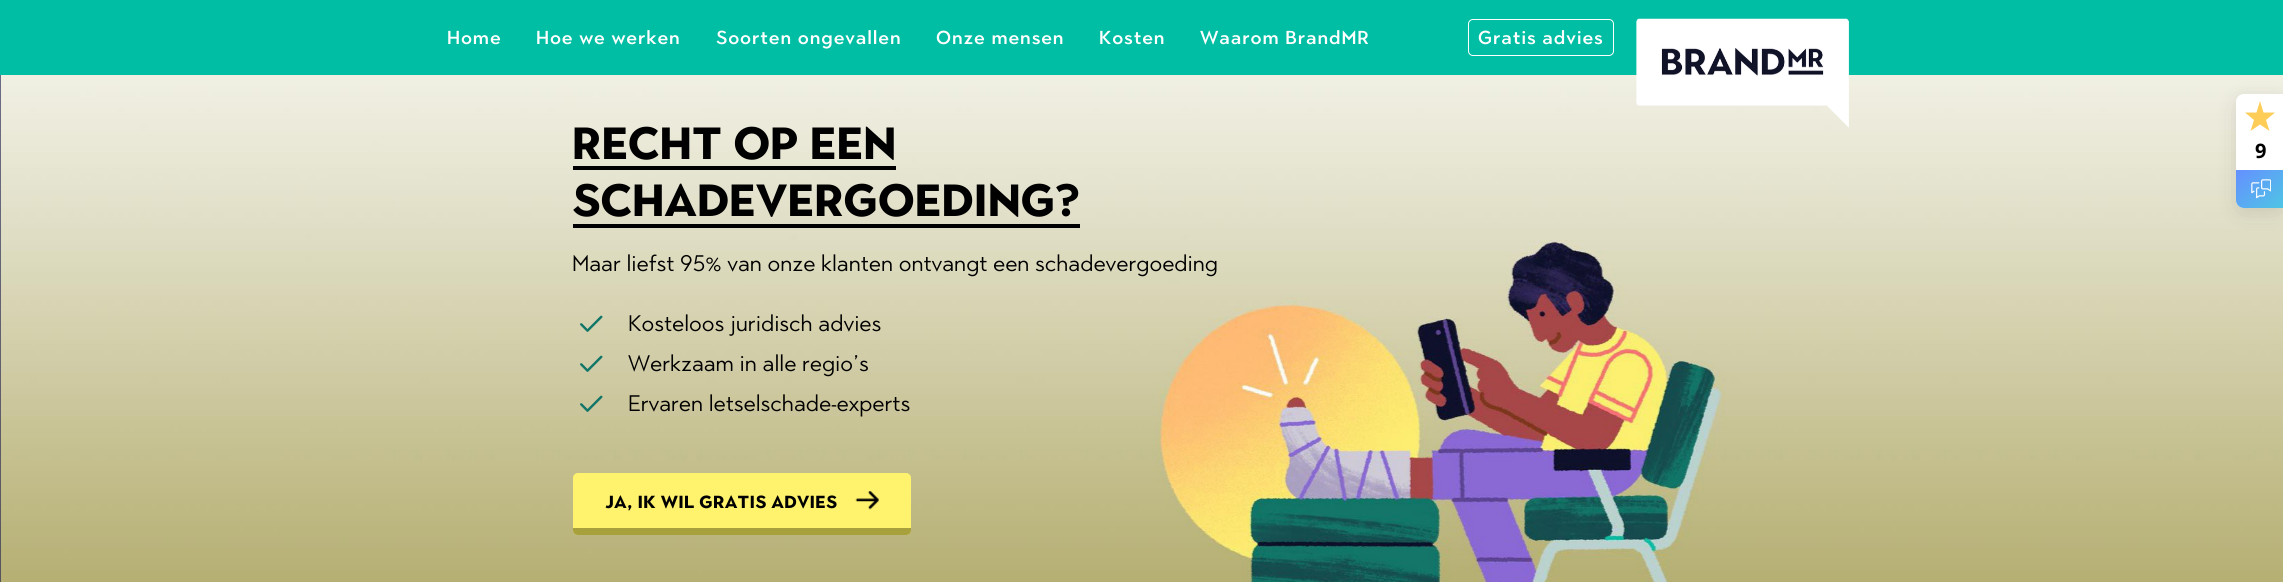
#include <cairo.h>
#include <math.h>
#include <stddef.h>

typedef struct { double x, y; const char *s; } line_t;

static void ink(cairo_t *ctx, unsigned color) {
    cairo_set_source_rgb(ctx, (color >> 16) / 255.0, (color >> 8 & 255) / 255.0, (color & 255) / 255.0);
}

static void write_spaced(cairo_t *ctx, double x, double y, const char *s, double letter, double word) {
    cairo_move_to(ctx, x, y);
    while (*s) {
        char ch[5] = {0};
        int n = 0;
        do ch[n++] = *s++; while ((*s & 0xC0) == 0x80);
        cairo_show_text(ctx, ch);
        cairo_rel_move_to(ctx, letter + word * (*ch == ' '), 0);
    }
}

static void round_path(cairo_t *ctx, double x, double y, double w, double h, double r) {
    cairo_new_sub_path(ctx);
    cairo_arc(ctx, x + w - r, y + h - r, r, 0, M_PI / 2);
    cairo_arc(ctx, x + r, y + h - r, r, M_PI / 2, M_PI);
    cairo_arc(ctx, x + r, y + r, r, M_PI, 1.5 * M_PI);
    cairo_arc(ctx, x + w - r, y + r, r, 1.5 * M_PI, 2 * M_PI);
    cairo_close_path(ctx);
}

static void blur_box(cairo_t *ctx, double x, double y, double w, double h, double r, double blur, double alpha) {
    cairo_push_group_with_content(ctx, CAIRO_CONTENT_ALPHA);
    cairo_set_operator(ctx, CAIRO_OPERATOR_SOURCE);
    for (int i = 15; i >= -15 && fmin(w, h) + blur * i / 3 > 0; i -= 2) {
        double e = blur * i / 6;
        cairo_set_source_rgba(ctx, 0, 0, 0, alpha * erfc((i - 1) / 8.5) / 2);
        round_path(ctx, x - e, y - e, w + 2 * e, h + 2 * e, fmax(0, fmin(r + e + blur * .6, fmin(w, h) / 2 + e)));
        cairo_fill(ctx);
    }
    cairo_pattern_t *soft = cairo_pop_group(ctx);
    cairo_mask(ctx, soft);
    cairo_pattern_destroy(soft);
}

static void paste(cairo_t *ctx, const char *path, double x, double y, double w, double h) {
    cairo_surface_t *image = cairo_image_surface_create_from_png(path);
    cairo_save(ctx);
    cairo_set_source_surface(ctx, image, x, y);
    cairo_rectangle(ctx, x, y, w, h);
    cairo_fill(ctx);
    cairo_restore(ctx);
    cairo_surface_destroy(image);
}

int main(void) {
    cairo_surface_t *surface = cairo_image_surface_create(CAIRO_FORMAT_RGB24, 2283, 582);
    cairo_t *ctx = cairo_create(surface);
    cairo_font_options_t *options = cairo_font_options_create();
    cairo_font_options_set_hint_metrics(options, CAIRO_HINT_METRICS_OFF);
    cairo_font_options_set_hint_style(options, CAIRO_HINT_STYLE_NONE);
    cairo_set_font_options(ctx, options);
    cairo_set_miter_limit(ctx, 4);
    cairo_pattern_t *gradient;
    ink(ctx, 0x252652);
    cairo_paint(ctx);
    ink(ctx, 0x00BEA4);
    cairo_rectangle(ctx, 0, 0, 2283, 75);
    cairo_fill(ctx);
    cairo_select_font_face(ctx, "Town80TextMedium", CAIRO_FONT_SLANT_NORMAL, CAIRO_FONT_WEIGHT_NORMAL);
    cairo_set_font_size(ctx, 18.75);
    ink(ctx, 0xFFFFFF);
    {
        static const line_t items[] = {
            {447, 44, "Home"},
            {536, 44, "Hoe we werken"},
            {716, 44, "Soorten ongevallen"},
            {936, 44, "Onze mensen"},
            {1099, 44, "Kosten"},
            {1200, 44, "Waarom BrandMR"},
        };
        for (size_t i = 0; i < sizeof items / sizeof *items; i++) {
            write_spaced(ctx, items[i].x, items[i].y, items[i].s, 0.9, 0);
        }
    }
    round_path(ctx, 1468.5, 19.5, 145, 36, 4.5);
    cairo_set_line_width(ctx, 1);
    cairo_stroke(ctx);
    write_spaced(ctx, 1478, 44, "Gratis advies", 0.9, 0);
    paste(ctx, "media/2.png", 0, 75, 2283, 507);
    paste(ctx, "media/1.png", 1636, 18, 213, 110);
    cairo_select_font_face(ctx, "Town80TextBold", CAIRO_FONT_SLANT_NORMAL, CAIRO_FONT_WEIGHT_NORMAL);
    cairo_set_font_size(ctx, 45);
    ink(ctx, 0x000000);
    cairo_move_to(ctx, 572, 159);
    cairo_show_text(ctx, "RECHT OP EEN");
    cairo_rectangle(ctx, 573, 166, 323, 4);
    cairo_fill(ctx);
    cairo_move_to(ctx, 572, 216);
    cairo_show_text(ctx, "SCHADEVERGOEDING?");
    cairo_rectangle(ctx, 573, 224, 507, 4);
    cairo_fill(ctx);
    cairo_select_font_face(ctx, "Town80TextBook", CAIRO_FONT_SLANT_NORMAL, CAIRO_FONT_WEIGHT_NORMAL);
    cairo_set_font_size(ctx, 22.5);
    cairo_move_to(ctx, 572, 271);
    cairo_show_text(ctx, "Maar liefst 95% van onze klanten ontvangt een schadevergoeding");
    paste(ctx, "media/3.png", 580, 315, 23, 17);
    cairo_move_to(ctx, 628, 331);
    cairo_show_text(ctx, "Kosteloos juridisch advies");
    paste(ctx, "media/4.png", 580, 355, 23, 17);
    cairo_move_to(ctx, 628, 371);
    cairo_show_text(ctx, "Werkzaam in alle regio’s");
    paste(ctx, "media/5.png", 580, 395, 23, 17);
    cairo_move_to(ctx, 628, 411);
    cairo_show_text(ctx, "Ervaren letselschade-experts");
    ink(ctx, 0xFFF36D);
    round_path(ctx, 573, 473, 338, 62, 5);
    cairo_fill(ctx);
    cairo_select_font_face(ctx, "Town80TextBold", CAIRO_FONT_SLANT_NORMAL, CAIRO_FONT_WEIGHT_NORMAL);
    cairo_set_font_size(ctx, 17.5);
    ink(ctx, 0x000000);
    write_spaced(ctx, 605, 508, "JA, IK WIL GRATIS ADVIES", 0.25, 0);
    paste(ctx, "media/6.png", 855, 491, 24, 19);
    ink(ctx, 0xA89F3D);
    cairo_new_path(ctx);
    cairo_move_to(ctx, 573, 528);
    cairo_line_to(ctx, 911, 528);
    cairo_line_to(ctx, 911, 530);
    cairo_curve_to(ctx, 911, 533, 909, 535, 906, 535);
    cairo_line_to(ctx, 578, 535);
    cairo_curve_to(ctx, 575, 535, 573, 533, 573, 530);
    cairo_close_path(ctx);
    cairo_fill(ctx);
    ink(ctx, 0x1E1E1E);
    blur_box(ctx, 2236, 99, 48, 114, 8, 10, 0.12);
    ink(ctx, 0xFFFFFF);
    cairo_new_path(ctx);
    cairo_move_to(ctx, 2244, 94);
    cairo_line_to(ctx, 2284, 94);
    cairo_line_to(ctx, 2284, 208);
    cairo_line_to(ctx, 2244, 208);
    cairo_curve_to(ctx, 2239.5, 208, 2236, 204.5, 2236, 200);
    cairo_line_to(ctx, 2236, 102);
    cairo_curve_to(ctx, 2236, 97.5, 2239.5, 94, 2244, 94);
    cairo_close_path(ctx);
    cairo_fill(ctx);
    ink(ctx, 0xFECD58);
    cairo_new_path(ctx);
    cairo_move_to(ctx, 2269.5, 131);
    cairo_line_to(ctx, 2266, 120);
    cairo_line_to(ctx, 2275, 112.5);
    cairo_line_to(ctx, 2263.5, 112.5);
    cairo_line_to(ctx, 2260, 101);
    cairo_line_to(ctx, 2256.5, 112.5);
    cairo_line_to(ctx, 2245, 112.5);
    cairo_line_to(ctx, 2254, 120);
    cairo_line_to(ctx, 2250.5, 131);
    cairo_line_to(ctx, 2260, 124.5);
    cairo_close_path(ctx);
    cairo_fill(ctx);
    cairo_select_font_face(ctx, "Open Sans", CAIRO_FONT_SLANT_NORMAL, CAIRO_FONT_WEIGHT_BOLD);
    cairo_set_font_size(ctx, 20);
    ink(ctx, 0x000000);
    write_spaced(ctx, 2255, 158, "9", -1, 0);
    gradient = cairo_pattern_create_linear(2240, 167, 2280, 211);
    cairo_pattern_add_color_stop_rgba(gradient, 0, 0.396, 0.565, 1, 1);
    cairo_pattern_add_color_stop_rgba(gradient, 1, 0.306, 0.773, 0.894, 1);
    cairo_set_source(ctx, gradient);
    cairo_pattern_destroy(gradient);
    cairo_new_path(ctx);
    cairo_move_to(ctx, 2236, 170);
    cairo_line_to(ctx, 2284, 170);
    cairo_line_to(ctx, 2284, 208);
    cairo_line_to(ctx, 2244, 208);
    cairo_curve_to(ctx, 2239.5, 208, 2236, 204.5, 2236, 200);
    cairo_close_path(ctx);
    cairo_fill(ctx);
    paste(ctx, "media/7.png", 2251, 179, 20, 20);
    cairo_surface_write_to_png(surface, "image.png");
    cairo_font_options_destroy(options);
    cairo_destroy(ctx);
    cairo_surface_destroy(surface);
    return 0;
}
